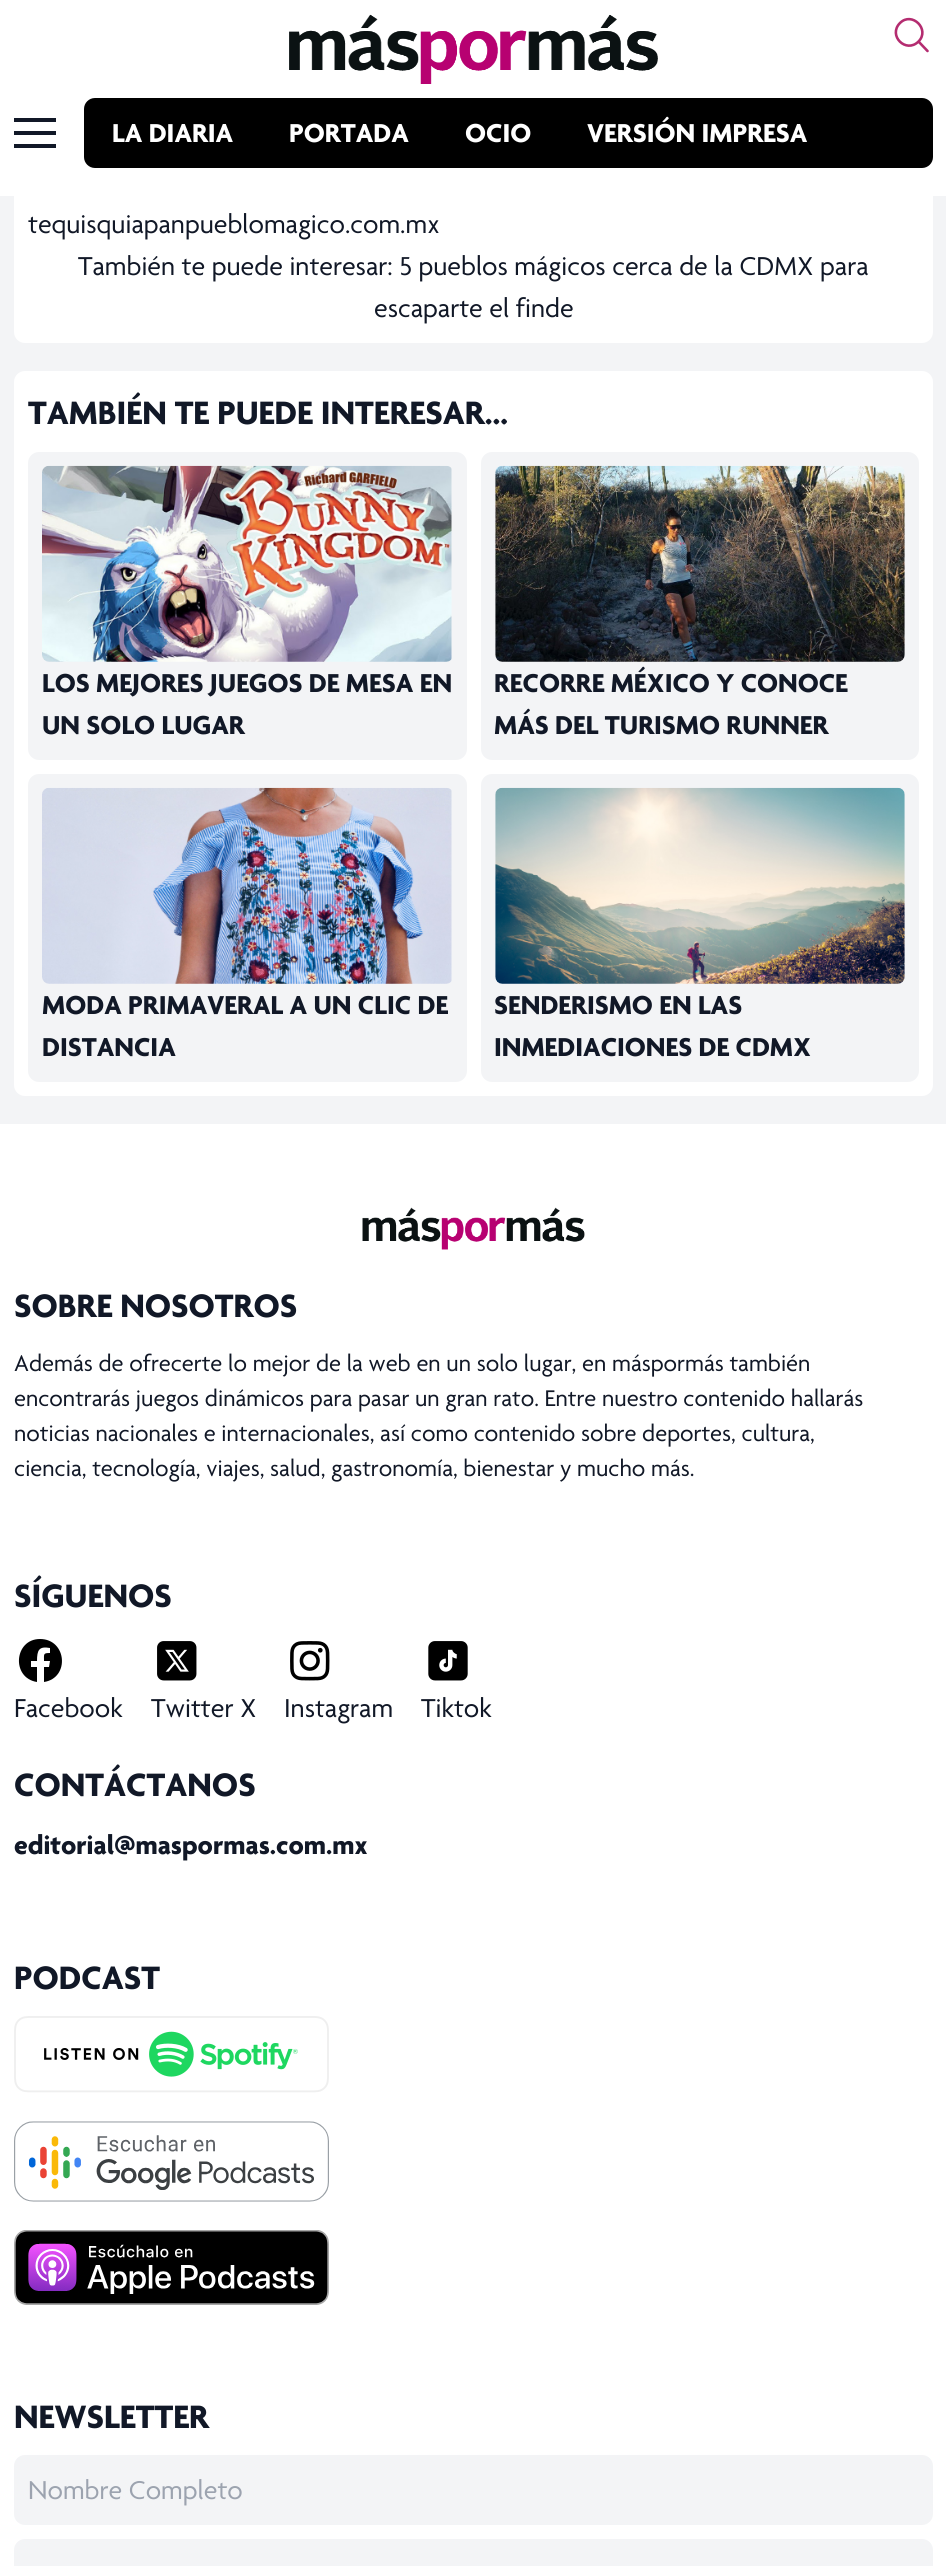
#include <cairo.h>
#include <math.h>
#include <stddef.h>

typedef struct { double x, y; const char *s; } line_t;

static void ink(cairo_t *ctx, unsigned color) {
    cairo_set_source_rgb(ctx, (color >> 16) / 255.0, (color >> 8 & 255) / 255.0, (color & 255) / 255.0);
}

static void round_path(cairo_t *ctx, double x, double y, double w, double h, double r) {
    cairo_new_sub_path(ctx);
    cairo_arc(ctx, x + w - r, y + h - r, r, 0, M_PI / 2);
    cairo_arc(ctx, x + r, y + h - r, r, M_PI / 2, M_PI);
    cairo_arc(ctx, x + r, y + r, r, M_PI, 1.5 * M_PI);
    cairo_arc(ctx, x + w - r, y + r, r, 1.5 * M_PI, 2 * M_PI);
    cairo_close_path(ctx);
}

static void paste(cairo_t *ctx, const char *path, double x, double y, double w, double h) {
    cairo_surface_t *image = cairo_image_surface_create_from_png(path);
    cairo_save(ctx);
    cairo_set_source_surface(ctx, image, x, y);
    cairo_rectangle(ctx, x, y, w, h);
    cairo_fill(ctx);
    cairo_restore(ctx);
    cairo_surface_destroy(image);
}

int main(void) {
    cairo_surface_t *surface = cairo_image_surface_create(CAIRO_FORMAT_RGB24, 946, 2566);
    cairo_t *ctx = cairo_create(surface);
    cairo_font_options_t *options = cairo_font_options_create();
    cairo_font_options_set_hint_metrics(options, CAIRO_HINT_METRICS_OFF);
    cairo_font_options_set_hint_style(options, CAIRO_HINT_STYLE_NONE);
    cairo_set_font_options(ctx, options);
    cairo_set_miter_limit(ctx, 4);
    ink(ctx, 0xFFFFFF);
    cairo_paint(ctx);
    ink(ctx, 0xF3F4F6);
    cairo_rectangle(ctx, 0, 196, 946, 928);
    cairo_fill(ctx);
    ink(ctx, 0xFFFFFF);
    round_path(ctx, 14, -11, 919, 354, 11);
    cairo_fill(ctx);
    paste(ctx, "media/1.png", 289, 14, 369, 70);
    cairo_new_path(ctx);
    cairo_move_to(ctx, 927.5, 51);
    cairo_line_to(ctx, 918.5, 41.5);
    cairo_move_to(ctx, 918.5, 41.5);
    cairo_curve_to(ctx, 930.5, 29.5, 912, 11, 900, 23);
    cairo_curve_to(ctx, 887.5, 35.5, 906, 54, 918.5, 41.5);
    cairo_close_path(ctx);
    ink(ctx, 0xB42C70);
    cairo_set_line_width(ctx, 2.6);
    cairo_set_line_cap(ctx, CAIRO_LINE_CAP_ROUND);
    cairo_set_line_join(ctx, CAIRO_LINE_JOIN_ROUND);
    cairo_stroke(ctx);
    ink(ctx, 0x111827);
    cairo_set_fill_rule(ctx, CAIRO_FILL_RULE_EVEN_ODD);
    cairo_new_path(ctx);
    cairo_move_to(ctx, 14, 118);
    cairo_line_to(ctx, 56, 118);
    cairo_line_to(ctx, 56, 122);
    cairo_line_to(ctx, 14, 122);
    cairo_close_path(ctx);
    cairo_move_to(ctx, 14, 131);
    cairo_line_to(ctx, 56, 131);
    cairo_line_to(ctx, 56, 135);
    cairo_line_to(ctx, 14, 135);
    cairo_close_path(ctx);
    cairo_move_to(ctx, 14, 144);
    cairo_line_to(ctx, 56, 144);
    cairo_line_to(ctx, 56, 148);
    cairo_line_to(ctx, 14, 148);
    cairo_close_path(ctx);
    cairo_fill(ctx);
    ink(ctx, 0x000000);
    round_path(ctx, 84, 98, 849, 70, 11);
    cairo_fill(ctx);
    cairo_select_font_face(ctx, "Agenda", CAIRO_FONT_SLANT_NORMAL, CAIRO_FONT_WEIGHT_BOLD);
    cairo_set_font_size(ctx, 28);
    ink(ctx, 0xFFFFFF);
    {
        static const line_t items[] = {
            {112, 142, "LA DIARIA"},
            {289, 142, "PORTADA"},
            {465, 142, "OCIO"},
            {587, 142, "VERSIÓN IMPRESA"},
        };
        for (size_t i = 0; i < sizeof items / sizeof *items; i++) {
            cairo_move_to(ctx, items[i].x, items[i].y);
            cairo_show_text(ctx, items[i].s);
        }
    }
    cairo_select_font_face(ctx, "Agenda", CAIRO_FONT_SLANT_NORMAL, CAIRO_FONT_WEIGHT_NORMAL);
    ink(ctx, 0x111827);
    {
        static const line_t items[] = {
            {28, 233, "tequisquiapanpueblomagico.com.mx"},
            {78, 275, "También te puede interesar: 5 pueblos mágicos cerca de la CDMX para"},
            {374, 317, "escaparte el finde"},
        };
        for (size_t i = 0; i < sizeof items / sizeof *items; i++) {
            cairo_move_to(ctx, items[i].x, items[i].y);
            cairo_show_text(ctx, items[i].s);
        }
    }
    ink(ctx, 0xFFFFFF);
    round_path(ctx, 14, 371, 919, 725, 11);
    cairo_fill(ctx);
    cairo_select_font_face(ctx, "Agenda", CAIRO_FONT_SLANT_NORMAL, CAIRO_FONT_WEIGHT_BOLD);
    cairo_set_font_size(ctx, 35);
    ink(ctx, 0x111827);
    cairo_move_to(ctx, 28, 424);
    cairo_show_text(ctx, "TAMBIÉN TE PUEDE INTERESAR...");
    ink(ctx, 0xF3F4F6);
    round_path(ctx, 28, 452, 439, 308, 11);
    cairo_fill(ctx);
    paste(ctx, "media/2.png", 42, 465, 410, 197);
    cairo_set_font_size(ctx, 28);
    ink(ctx, 0x111827);
    cairo_move_to(ctx, 42, 692);
    cairo_show_text(ctx, "LOS MEJORES JUEGOS DE MESA EN");
    cairo_move_to(ctx, 42, 734);
    cairo_show_text(ctx, "UN SOLO LUGAR");
    ink(ctx, 0xF3F4F6);
    round_path(ctx, 481, 452, 438, 308, 11);
    cairo_fill(ctx);
    paste(ctx, "media/3.png", 495, 465, 410, 197);
    ink(ctx, 0x111827);
    cairo_move_to(ctx, 494, 692);
    cairo_show_text(ctx, "RECORRE MÉXICO Y CONOCE");
    cairo_move_to(ctx, 494, 734);
    cairo_show_text(ctx, "MÁS DEL TURISMO RUNNER");
    ink(ctx, 0xF3F4F6);
    round_path(ctx, 28, 774, 439, 308, 11);
    cairo_fill(ctx);
    paste(ctx, "media/4.png", 42, 787, 410, 197);
    ink(ctx, 0x111827);
    cairo_move_to(ctx, 42, 1014);
    cairo_show_text(ctx, "MODA PRIMAVERAL A UN CLIC DE");
    cairo_move_to(ctx, 42, 1056);
    cairo_show_text(ctx, "DISTANCIA");
    ink(ctx, 0xF3F4F6);
    round_path(ctx, 481, 774, 438, 308, 11);
    cairo_fill(ctx);
    paste(ctx, "media/5.png", 495, 787, 410, 197);
    ink(ctx, 0x111827);
    cairo_move_to(ctx, 494, 1014);
    cairo_show_text(ctx, "SENDERISMO EN LAS");
    cairo_move_to(ctx, 494, 1056);
    cairo_show_text(ctx, "INMEDIACIONES DE CDMX");
    paste(ctx, "media/6.png", 362, 1207, 223, 43);
    cairo_set_font_size(ctx, 35);
    cairo_move_to(ctx, 14, 1317);
    cairo_show_text(ctx, "SOBRE NOSOTROS");
    cairo_select_font_face(ctx, "Agenda", CAIRO_FONT_SLANT_NORMAL, CAIRO_FONT_WEIGHT_NORMAL);
    cairo_set_font_size(ctx, 24.5);
    {
        static const line_t items[] = {
            {14, 1371, "Además de ofrecerte lo mejor de la web en un solo lugar, en máspormás también"},
            {14, 1406, "encontrarás juegos dinámicos para pasar un gran rato. Entre nuestro contenido hallarás"},
            {14, 1441, "noticias nacionales e internacionales, así como contenido sobre deportes, cultura,"},
            {14, 1476, "ciencia, tecnología, viajes, salud, gastronomía, bienestar y mucho más."},
        };
        for (size_t i = 0; i < sizeof items / sizeof *items; i++) {
            cairo_move_to(ctx, items[i].x, items[i].y);
            cairo_show_text(ctx, items[i].s);
        }
    }
    cairo_select_font_face(ctx, "Agenda", CAIRO_FONT_SLANT_NORMAL, CAIRO_FONT_WEIGHT_BOLD);
    cairo_set_font_size(ctx, 35);
    cairo_move_to(ctx, 14, 1607);
    cairo_show_text(ctx, "SÍGUENOS");
    ink(ctx, 0x000000);
    cairo_set_fill_rule(ctx, CAIRO_FILL_RULE_WINDING);
    cairo_new_path(ctx);
    cairo_move_to(ctx, 40, 1639);
    cairo_curve_to(ctx, 14, 1639, 11, 1678, 37, 1682);
    cairo_line_to(ctx, 37, 1667);
    cairo_line_to(ctx, 31, 1667);
    cairo_line_to(ctx, 31, 1661);
    cairo_line_to(ctx, 37, 1661);
    cairo_curve_to(ctx, 37, 1650, 39, 1646, 50, 1648);
    cairo_line_to(ctx, 50, 1653);
    cairo_curve_to(ctx, 43, 1653, 44, 1654, 44, 1661);
    cairo_line_to(ctx, 50, 1661);
    cairo_line_to(ctx, 49, 1667);
    cairo_line_to(ctx, 44, 1667);
    cairo_line_to(ctx, 44, 1682);
    cairo_curve_to(ctx, 70, 1678, 67, 1639, 40, 1639);
    cairo_close_path(ctx);
    cairo_fill(ctx);
    cairo_select_font_face(ctx, "Agenda", CAIRO_FONT_SLANT_NORMAL, CAIRO_FONT_WEIGHT_NORMAL);
    cairo_set_font_size(ctx, 28);
    ink(ctx, 0x111827);
    cairo_move_to(ctx, 14, 1717);
    cairo_show_text(ctx, "Facebook");
    paste(ctx, "media/7.png", 157, 1641, 40, 40);
    cairo_move_to(ctx, 151, 1717);
    cairo_show_text(ctx, "Twitter X");
    paste(ctx, "media/8.png", 290, 1641, 40, 40);
    cairo_move_to(ctx, 284, 1717);
    cairo_show_text(ctx, "Instagram");
    paste(ctx, "media/9.png", 428, 1641, 40, 40);
    cairo_move_to(ctx, 421, 1717);
    cairo_show_text(ctx, "Tiktok");
    cairo_select_font_face(ctx, "Agenda", CAIRO_FONT_SLANT_NORMAL, CAIRO_FONT_WEIGHT_BOLD);
    cairo_set_font_size(ctx, 35);
    cairo_move_to(ctx, 14, 1796);
    cairo_show_text(ctx, "CONTÁCTANOS");
    cairo_set_font_size(ctx, 28);
    cairo_move_to(ctx, 14, 1854);
    cairo_show_text(ctx, "editorial@maspormas.com.mx");
    cairo_set_font_size(ctx, 35);
    cairo_move_to(ctx, 14, 1989);
    cairo_show_text(ctx, "PODCAST");
    paste(ctx, "media/10.png", 14, 2016, 315, 77);
    paste(ctx, "media/11.png", 14, 2121, 315, 81);
    paste(ctx, "media/12.png", 14, 2230, 315, 75);
    cairo_move_to(ctx, 14, 2428);
    cairo_show_text(ctx, "NEWSLETTER");
    ink(ctx, 0xF3F4F6);
    round_path(ctx, 14, 2455, 919, 70, 11);
    cairo_fill(ctx);
    cairo_select_font_face(ctx, "Agenda", CAIRO_FONT_SLANT_NORMAL, CAIRO_FONT_WEIGHT_NORMAL);
    cairo_set_font_size(ctx, 28);
    ink(ctx, 0x9CA3AF);
    cairo_move_to(ctx, 28, 2499);
    cairo_show_text(ctx, "Nombre Completo");
    ink(ctx, 0xF3F4F6);
    round_path(ctx, 14, 2539, 919, 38, 11);
    cairo_fill(ctx);
    cairo_surface_write_to_png(surface, "image.png");
    cairo_font_options_destroy(options);
    cairo_destroy(ctx);
    cairo_surface_destroy(surface);
    return 0;
}
